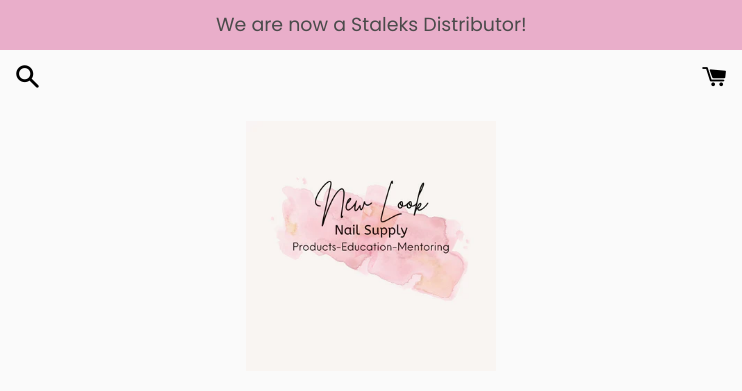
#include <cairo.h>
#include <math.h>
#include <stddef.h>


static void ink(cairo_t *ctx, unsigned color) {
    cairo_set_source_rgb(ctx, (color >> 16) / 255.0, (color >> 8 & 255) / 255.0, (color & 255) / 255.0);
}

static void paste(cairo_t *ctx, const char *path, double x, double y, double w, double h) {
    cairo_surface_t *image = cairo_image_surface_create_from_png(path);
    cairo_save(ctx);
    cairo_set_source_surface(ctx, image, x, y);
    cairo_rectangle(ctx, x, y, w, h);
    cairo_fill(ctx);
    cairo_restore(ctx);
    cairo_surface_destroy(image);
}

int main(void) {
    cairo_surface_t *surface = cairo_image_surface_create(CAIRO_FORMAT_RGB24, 742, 391);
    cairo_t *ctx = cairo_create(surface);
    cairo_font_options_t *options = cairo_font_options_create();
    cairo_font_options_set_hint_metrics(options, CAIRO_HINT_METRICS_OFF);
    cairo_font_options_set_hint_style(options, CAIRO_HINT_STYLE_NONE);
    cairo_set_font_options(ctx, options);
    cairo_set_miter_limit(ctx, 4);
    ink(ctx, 0xFAFAFA);
    cairo_paint(ctx);
    ink(ctx, 0xE9AECA);
    cairo_rectangle(ctx, 0, 0, 742, 50);
    cairo_fill(ctx);
    cairo_select_font_face(ctx, "Poppins", CAIRO_FONT_SLANT_NORMAL, CAIRO_FONT_WEIGHT_NORMAL);
    cairo_set_font_size(ctx, 19);
    ink(ctx, 0x4B4B4B);
    cairo_move_to(ctx, 216, 31);
    cairo_show_text(ctx, "We are now a Staleks Distributor!");
    paste(ctx, "media/1.png", 16, 65, 23, 23);
    paste(ctx, "media/2.png", 702, 67, 24, 20);
    paste(ctx, "media/3.png", 246, 121, 250, 250);
    cairo_surface_write_to_png(surface, "image.png");
    cairo_font_options_destroy(options);
    cairo_destroy(ctx);
    cairo_surface_destroy(surface);
    return 0;
}
